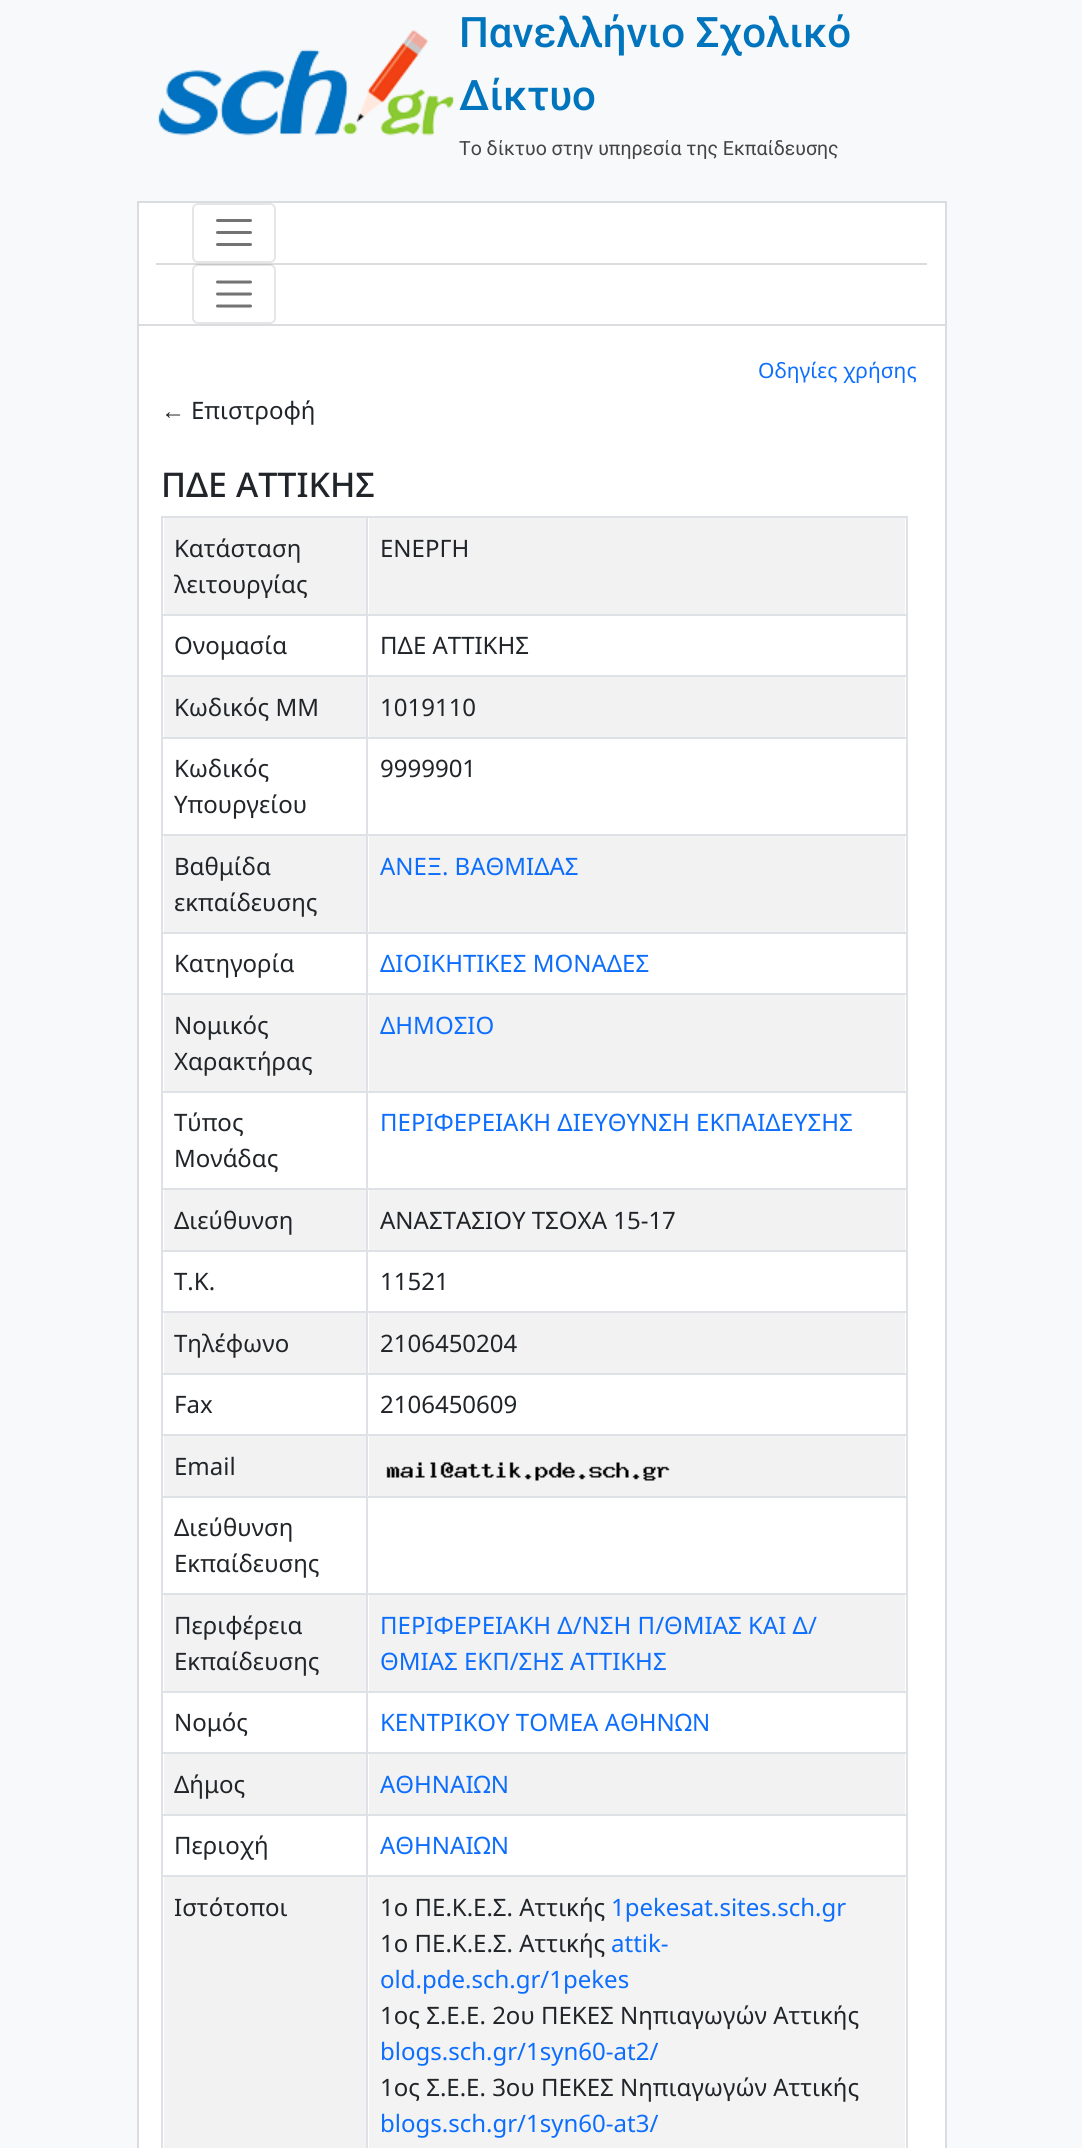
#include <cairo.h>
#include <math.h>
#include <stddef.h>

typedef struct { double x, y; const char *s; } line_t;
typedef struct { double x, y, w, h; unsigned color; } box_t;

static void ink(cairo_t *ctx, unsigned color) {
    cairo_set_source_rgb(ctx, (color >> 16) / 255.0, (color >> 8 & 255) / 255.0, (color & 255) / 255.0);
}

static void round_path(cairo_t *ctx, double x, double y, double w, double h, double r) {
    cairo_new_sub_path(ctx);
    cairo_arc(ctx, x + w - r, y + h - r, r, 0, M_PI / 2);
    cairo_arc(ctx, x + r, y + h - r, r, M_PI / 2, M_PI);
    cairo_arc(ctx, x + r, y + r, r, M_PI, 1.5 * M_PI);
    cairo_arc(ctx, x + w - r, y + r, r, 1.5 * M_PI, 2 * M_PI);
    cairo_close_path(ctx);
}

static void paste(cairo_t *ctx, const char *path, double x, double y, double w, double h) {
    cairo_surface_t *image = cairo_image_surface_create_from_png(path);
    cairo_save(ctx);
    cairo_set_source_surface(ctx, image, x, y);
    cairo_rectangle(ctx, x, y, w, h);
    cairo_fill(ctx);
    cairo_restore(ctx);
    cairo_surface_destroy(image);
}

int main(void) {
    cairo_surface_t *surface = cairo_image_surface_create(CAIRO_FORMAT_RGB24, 1082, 2148);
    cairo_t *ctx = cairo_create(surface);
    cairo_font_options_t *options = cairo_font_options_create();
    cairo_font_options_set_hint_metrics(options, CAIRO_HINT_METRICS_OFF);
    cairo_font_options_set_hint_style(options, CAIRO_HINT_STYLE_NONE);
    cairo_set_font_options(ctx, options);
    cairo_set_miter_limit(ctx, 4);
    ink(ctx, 0xF8F9FA);
    cairo_paint(ctx);
    paste(ctx, "media/1.png", 157, 29, 298, 107);
    cairo_select_font_face(ctx, "Roboto Medium", CAIRO_FONT_SLANT_NORMAL, CAIRO_FONT_WEIGHT_NORMAL);
    cairo_set_font_size(ctx, 42);
    ink(ctx, 0x0074BC);
    cairo_move_to(ctx, 459, 47);
    cairo_show_text(ctx, "Πανελλήνιο Σχολικό");
    cairo_move_to(ctx, 459, 110);
    cairo_show_text(ctx, "Δίκτυο");
    cairo_select_font_face(ctx, "Roboto", CAIRO_FONT_SLANT_NORMAL, CAIRO_FONT_WEIGHT_NORMAL);
    cairo_set_font_size(ctx, 19.5);
    ink(ctx, 0x444444);
    cairo_move_to(ctx, 459, 155);
    cairo_show_text(ctx, "Το δίκτυο στην υπηρεσία της Εκπαίδευσης");
    {
        static const box_t items[] = {
            {139, 203, 806, 121, 0xFFFFFF},
            {137, 201, 810, 2, 0xDADCE0},
            {945, 201, 2, 123, 0xDADCE0},
            {137, 201, 2, 123, 0xDADCE0},
            {156, 263, 771, 2, 0xDADCE0},
        };
        for (size_t i = 0; i < sizeof items / sizeof *items; i++) {
            ink(ctx, items[i].color);
            cairo_rectangle(ctx, items[i].x, items[i].y, items[i].w, items[i].h);
            cairo_fill(ctx);
        }
    }
    round_path(ctx, 193, 204, 82, 58, 5);
    ink(ctx, 0xE6E6E6);
    cairo_stroke(ctx);
    cairo_new_path(ctx);
    cairo_move_to(ctx, 217.5, 220.5);
    cairo_line_to(ctx, 250.5, 220.5);
    cairo_move_to(ctx, 217.5, 232.5);
    cairo_line_to(ctx, 250.5, 232.5);
    cairo_move_to(ctx, 217.5, 244.5);
    cairo_line_to(ctx, 250.5, 244.5);
    ink(ctx, 0x737373);
    cairo_set_line_width(ctx, 3);
    cairo_set_line_cap(ctx, CAIRO_LINE_CAP_ROUND);
    cairo_stroke(ctx);
    round_path(ctx, 193, 265, 82, 58, 5);
    cairo_set_source_rgba(ctx, 0, 0, 0, 0.1);
    cairo_set_line_width(ctx, 2);
    cairo_set_line_cap(ctx, CAIRO_LINE_CAP_BUTT);
    cairo_stroke(ctx);
    cairo_new_path(ctx);
    cairo_move_to(ctx, 217.5, 282);
    cairo_line_to(ctx, 250.5, 282);
    cairo_move_to(ctx, 217.5, 294);
    cairo_line_to(ctx, 250.5, 294);
    cairo_move_to(ctx, 217.5, 306);
    cairo_line_to(ctx, 250.5, 306);
    ink(ctx, 0x737373);
    cairo_set_line_width(ctx, 3);
    cairo_set_line_cap(ctx, CAIRO_LINE_CAP_ROUND);
    cairo_stroke(ctx);
    ink(ctx, 0xFFFFFF);
    cairo_rectangle(ctx, 138, 325, 808, 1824);
    cairo_fill_preserve(ctx);
    ink(ctx, 0xDADCE0);
    cairo_set_line_width(ctx, 2);
    cairo_set_line_cap(ctx, CAIRO_LINE_CAP_BUTT);
    cairo_stroke(ctx);
    cairo_select_font_face(ctx, "Noto Sans", CAIRO_FONT_SLANT_NORMAL, CAIRO_FONT_WEIGHT_NORMAL);
    cairo_set_font_size(ctx, 21);
    ink(ctx, 0x0D6EFD);
    cairo_move_to(ctx, 758, 378);
    cairo_show_text(ctx, "Οδηγίες χρήσης");
    cairo_select_font_face(ctx, "Liberation Sans", CAIRO_FONT_SLANT_NORMAL, CAIRO_FONT_WEIGHT_NORMAL);
    cairo_set_font_size(ctx, 24);
    ink(ctx, 0x212529);
    cairo_move_to(ctx, 161, 419);
    cairo_show_text(ctx, "←");
    cairo_select_font_face(ctx, "Noto Sans", CAIRO_FONT_SLANT_NORMAL, CAIRO_FONT_WEIGHT_NORMAL);
    cairo_move_to(ctx, 191, 419);
    cairo_show_text(ctx, "Επιστροφή");
    cairo_select_font_face(ctx, "Noto Sans Medium", CAIRO_FONT_SLANT_NORMAL, CAIRO_FONT_WEIGHT_NORMAL);
    cairo_set_font_size(ctx, 34);
    cairo_move_to(ctx, 161, 497);
    cairo_show_text(ctx, "ΠΔΕ ΑΤΤΙΚΗΣ");
    ink(ctx, 0xDEE2E6);
    cairo_rectangle(ctx, 161, 516, 747, 2);
    cairo_fill(ctx);
    ink(ctx, 0xF2F2F2);
    cairo_rectangle(ctx, 164, 518, 202, 96);
    cairo_fill(ctx);
    cairo_select_font_face(ctx, "Noto Sans", CAIRO_FONT_SLANT_NORMAL, CAIRO_FONT_WEIGHT_NORMAL);
    cairo_set_font_size(ctx, 24);
    ink(ctx, 0x212529);
    cairo_move_to(ctx, 174, 557);
    cairo_show_text(ctx, "Κατάσταση");
    cairo_move_to(ctx, 174, 593);
    cairo_show_text(ctx, "λειτουργίας");
    ink(ctx, 0xF2F2F2);
    cairo_rectangle(ctx, 369, 518, 536, 96);
    cairo_fill(ctx);
    ink(ctx, 0x212529);
    cairo_move_to(ctx, 380, 557);
    cairo_show_text(ctx, "ΕΝΕΡΓΗ");
    ink(ctx, 0xDEE2E6);
    cairo_rectangle(ctx, 161, 614, 747, 2);
    cairo_fill(ctx);
    ink(ctx, 0x212529);
    cairo_move_to(ctx, 174, 654);
    cairo_show_text(ctx, "Ονομασία");
    cairo_move_to(ctx, 380, 654);
    cairo_show_text(ctx, "ΠΔΕ ΑΤΤΙΚΗΣ");
    ink(ctx, 0xDEE2E6);
    cairo_rectangle(ctx, 161, 675, 747, 2);
    cairo_fill(ctx);
    ink(ctx, 0xF2F2F2);
    cairo_rectangle(ctx, 164, 677, 202, 60);
    cairo_fill(ctx);
    ink(ctx, 0x212529);
    cairo_move_to(ctx, 174, 716);
    cairo_show_text(ctx, "Κωδικός ΜΜ");
    ink(ctx, 0xF2F2F2);
    cairo_rectangle(ctx, 369, 677, 536, 60);
    cairo_fill(ctx);
    ink(ctx, 0x212529);
    cairo_move_to(ctx, 380, 716);
    cairo_show_text(ctx, "1019110");
    ink(ctx, 0xDEE2E6);
    cairo_rectangle(ctx, 161, 737, 747, 2);
    cairo_fill(ctx);
    ink(ctx, 0x212529);
    {
        static const line_t items[] = {
            {174, 777, "Κωδικός"},
            {174, 813, "Υπουργείου"},
            {380, 777, "9999901"},
        };
        for (size_t i = 0; i < sizeof items / sizeof *items; i++) {
            cairo_move_to(ctx, items[i].x, items[i].y);
            cairo_show_text(ctx, items[i].s);
        }
    }
    ink(ctx, 0xDEE2E6);
    cairo_rectangle(ctx, 161, 834, 747, 2);
    cairo_fill(ctx);
    ink(ctx, 0xF2F2F2);
    cairo_rectangle(ctx, 164, 836, 202, 96);
    cairo_fill(ctx);
    ink(ctx, 0x212529);
    cairo_move_to(ctx, 174, 875);
    cairo_show_text(ctx, "Βαθμίδα");
    cairo_move_to(ctx, 174, 911);
    cairo_show_text(ctx, "εκπαίδευσης");
    ink(ctx, 0xF2F2F2);
    cairo_rectangle(ctx, 369, 836, 536, 96);
    cairo_fill(ctx);
    ink(ctx, 0x0D6EFD);
    cairo_move_to(ctx, 380, 875);
    cairo_show_text(ctx, "ΑΝΕΞ. ΒΑΘΜΙΔΑΣ");
    ink(ctx, 0xDEE2E6);
    cairo_rectangle(ctx, 161, 932, 747, 2);
    cairo_fill(ctx);
    ink(ctx, 0x212529);
    cairo_move_to(ctx, 174, 972);
    cairo_show_text(ctx, "Κατηγορία");
    ink(ctx, 0x0D6EFD);
    cairo_move_to(ctx, 380, 972);
    cairo_show_text(ctx, "ΔΙΟΙΚΗΤΙΚΕΣ ΜΟΝΑΔΕΣ");
    ink(ctx, 0xDEE2E6);
    cairo_rectangle(ctx, 161, 993, 747, 2);
    cairo_fill(ctx);
    ink(ctx, 0xF2F2F2);
    cairo_rectangle(ctx, 164, 995, 202, 96);
    cairo_fill(ctx);
    ink(ctx, 0x212529);
    cairo_move_to(ctx, 174, 1034);
    cairo_show_text(ctx, "Νομικός");
    cairo_move_to(ctx, 174, 1070);
    cairo_show_text(ctx, "Χαρακτήρας");
    ink(ctx, 0xF2F2F2);
    cairo_rectangle(ctx, 369, 995, 536, 96);
    cairo_fill(ctx);
    ink(ctx, 0x0D6EFD);
    cairo_move_to(ctx, 380, 1034);
    cairo_show_text(ctx, "ΔΗΜΟΣΙΟ");
    ink(ctx, 0xDEE2E6);
    cairo_rectangle(ctx, 161, 1091, 747, 2);
    cairo_fill(ctx);
    ink(ctx, 0x212529);
    cairo_move_to(ctx, 174, 1131);
    cairo_show_text(ctx, "Τύπος");
    cairo_move_to(ctx, 174, 1167);
    cairo_show_text(ctx, "Μονάδας");
    ink(ctx, 0x0D6EFD);
    cairo_move_to(ctx, 380, 1131);
    cairo_show_text(ctx, "ΠΕΡΙΦΕΡΕΙΑΚΗ ΔΙΕΥΘΥΝΣΗ ΕΚΠΑΙΔΕΥΣΗΣ");
    ink(ctx, 0xDEE2E6);
    cairo_rectangle(ctx, 161, 1188, 747, 2);
    cairo_fill(ctx);
    ink(ctx, 0xF2F2F2);
    cairo_rectangle(ctx, 164, 1190, 202, 60);
    cairo_fill(ctx);
    ink(ctx, 0x212529);
    cairo_move_to(ctx, 174, 1229);
    cairo_show_text(ctx, "Διεύθυνση");
    ink(ctx, 0xF2F2F2);
    cairo_rectangle(ctx, 369, 1190, 536, 60);
    cairo_fill(ctx);
    ink(ctx, 0x212529);
    cairo_move_to(ctx, 380, 1229);
    cairo_show_text(ctx, "ΑΝΑΣΤΑΣΙΟΥ ΤΣΟΧΑ 15-17");
    ink(ctx, 0xDEE2E6);
    cairo_rectangle(ctx, 161, 1250, 747, 2);
    cairo_fill(ctx);
    ink(ctx, 0x212529);
    cairo_move_to(ctx, 174, 1290);
    cairo_show_text(ctx, "Τ.Κ.");
    cairo_move_to(ctx, 380, 1290);
    cairo_show_text(ctx, "11521");
    ink(ctx, 0xDEE2E6);
    cairo_rectangle(ctx, 161, 1311, 747, 2);
    cairo_fill(ctx);
    ink(ctx, 0xF2F2F2);
    cairo_rectangle(ctx, 164, 1313, 202, 60);
    cairo_fill(ctx);
    ink(ctx, 0x212529);
    cairo_move_to(ctx, 174, 1352);
    cairo_show_text(ctx, "Τηλέφωνο");
    ink(ctx, 0xF2F2F2);
    cairo_rectangle(ctx, 369, 1313, 536, 60);
    cairo_fill(ctx);
    ink(ctx, 0x212529);
    cairo_move_to(ctx, 380, 1352);
    cairo_show_text(ctx, "2106450204");
    ink(ctx, 0xDEE2E6);
    cairo_rectangle(ctx, 161, 1373, 747, 2);
    cairo_fill(ctx);
    ink(ctx, 0x212529);
    cairo_move_to(ctx, 174, 1413);
    cairo_show_text(ctx, "Fax");
    cairo_move_to(ctx, 380, 1413);
    cairo_show_text(ctx, "2106450609");
    ink(ctx, 0xDEE2E6);
    cairo_rectangle(ctx, 161, 1434, 747, 2);
    cairo_fill(ctx);
    ink(ctx, 0xF2F2F2);
    cairo_rectangle(ctx, 164, 1436, 202, 60);
    cairo_fill(ctx);
    ink(ctx, 0x212529);
    cairo_move_to(ctx, 174, 1475);
    cairo_show_text(ctx, "Email");
    ink(ctx, 0xF2F2F2);
    cairo_rectangle(ctx, 369, 1436, 536, 60);
    cairo_fill(ctx);
    paste(ctx, "media/2.png", 386, 1462, 284, 19);
    ink(ctx, 0xDEE2E6);
    cairo_rectangle(ctx, 161, 1496, 747, 2);
    cairo_fill(ctx);
    ink(ctx, 0x212529);
    cairo_move_to(ctx, 174, 1536);
    cairo_show_text(ctx, "Διεύθυνση");
    cairo_move_to(ctx, 174, 1572);
    cairo_show_text(ctx, "Εκπαίδευσης");
    ink(ctx, 0xDEE2E6);
    cairo_rectangle(ctx, 161, 1593, 747, 2);
    cairo_fill(ctx);
    ink(ctx, 0xF2F2F2);
    cairo_rectangle(ctx, 164, 1595, 202, 96);
    cairo_fill(ctx);
    ink(ctx, 0x212529);
    cairo_move_to(ctx, 174, 1634);
    cairo_show_text(ctx, "Περιφέρεια");
    cairo_move_to(ctx, 174, 1670);
    cairo_show_text(ctx, "Εκπαίδευσης");
    ink(ctx, 0xF2F2F2);
    cairo_rectangle(ctx, 369, 1595, 536, 96);
    cairo_fill(ctx);
    ink(ctx, 0x0D6EFD);
    cairo_move_to(ctx, 380, 1634);
    cairo_show_text(ctx, "ΠΕΡΙΦΕΡΕΙΑΚΗ Δ/ΝΣΗ Π/ΘΜΙΑΣ ΚΑΙ Δ/");
    cairo_move_to(ctx, 380, 1670);
    cairo_show_text(ctx, "ΘΜΙΑΣ ΕΚΠ/ΣΗΣ ΑΤΤΙΚΗΣ");
    ink(ctx, 0xDEE2E6);
    cairo_rectangle(ctx, 161, 1691, 747, 2);
    cairo_fill(ctx);
    ink(ctx, 0x212529);
    cairo_move_to(ctx, 174, 1731);
    cairo_show_text(ctx, "Νομός");
    ink(ctx, 0x0D6EFD);
    cairo_move_to(ctx, 380, 1731);
    cairo_show_text(ctx, "ΚΕΝΤΡΙΚΟΥ ΤΟΜΕΑ ΑΘΗΝΩΝ");
    ink(ctx, 0xDEE2E6);
    cairo_rectangle(ctx, 161, 1752, 747, 2);
    cairo_fill(ctx);
    ink(ctx, 0xF2F2F2);
    cairo_rectangle(ctx, 164, 1754, 202, 60);
    cairo_fill(ctx);
    ink(ctx, 0x212529);
    cairo_move_to(ctx, 174, 1793);
    cairo_show_text(ctx, "Δήμος");
    ink(ctx, 0xF2F2F2);
    cairo_rectangle(ctx, 369, 1754, 536, 60);
    cairo_fill(ctx);
    ink(ctx, 0x0D6EFD);
    cairo_move_to(ctx, 380, 1793);
    cairo_show_text(ctx, "ΑΘΗΝΑΙΩΝ");
    ink(ctx, 0xDEE2E6);
    cairo_rectangle(ctx, 161, 1814, 747, 2);
    cairo_fill(ctx);
    ink(ctx, 0x212529);
    cairo_move_to(ctx, 174, 1854);
    cairo_show_text(ctx, "Περιοχή");
    ink(ctx, 0x0D6EFD);
    cairo_move_to(ctx, 380, 1854);
    cairo_show_text(ctx, "ΑΘΗΝΑΙΩΝ");
    {
        static const box_t items[] = {
            {161, 1875, 747, 2, 0xDEE2E6},
            {164, 1877, 202, 271, 0xF2F2F2},
            {161, 516, 2, 1632, 0xDEE2E6},
        };
        for (size_t i = 0; i < sizeof items / sizeof *items; i++) {
            ink(ctx, items[i].color);
            cairo_rectangle(ctx, items[i].x, items[i].y, items[i].w, items[i].h);
            cairo_fill(ctx);
        }
    }
    ink(ctx, 0x212529);
    cairo_move_to(ctx, 174, 1916);
    cairo_show_text(ctx, "Ιστότοποι");
    {
        static const box_t items[] = {
            {369, 1877, 536, 271, 0xF3F3F3},
            {906, 516, 2, 1632, 0xDEE2E6},
            {366, 516, 2, 1632, 0xDEE2E6},
        };
        for (size_t i = 0; i < sizeof items / sizeof *items; i++) {
            ink(ctx, items[i].color);
            cairo_rectangle(ctx, items[i].x, items[i].y, items[i].w, items[i].h);
            cairo_fill(ctx);
        }
    }
    ink(ctx, 0x212529);
    cairo_move_to(ctx, 380, 1916);
    cairo_show_text(ctx, "1ο ΠΕ.Κ.Ε.Σ. Αττικής");
    ink(ctx, 0x0D6EFD);
    cairo_move_to(ctx, 611, 1916);
    cairo_show_text(ctx, "1pekesat.sites.sch.gr");
    ink(ctx, 0x212529);
    cairo_move_to(ctx, 380, 1952);
    cairo_show_text(ctx, "1ο ΠΕ.Κ.Ε.Σ. Αττικής");
    ink(ctx, 0x0D6EFD);
    cairo_move_to(ctx, 611, 1952);
    cairo_show_text(ctx, "attik-");
    cairo_move_to(ctx, 380, 1988);
    cairo_show_text(ctx, "old.pde.sch.gr/1pekes");
    ink(ctx, 0x212529);
    cairo_move_to(ctx, 380, 2024);
    cairo_show_text(ctx, "1ος Σ.Ε.Ε. 2ου ΠΕΚΕΣ Νηπιαγωγών Αττικής");
    ink(ctx, 0x0D6EFD);
    cairo_move_to(ctx, 380, 2060);
    cairo_show_text(ctx, "blogs.sch.gr/1syn60-at2/");
    ink(ctx, 0x212529);
    cairo_move_to(ctx, 380, 2096);
    cairo_show_text(ctx, "1ος Σ.Ε.Ε. 3ου ΠΕΚΕΣ Νηπιαγωγών Αττικής");
    ink(ctx, 0x0D6EFD);
    cairo_move_to(ctx, 380, 2132);
    cairo_show_text(ctx, "blogs.sch.gr/1syn60-at3/");
    cairo_surface_write_to_png(surface, "image.png");
    cairo_font_options_destroy(options);
    cairo_destroy(ctx);
    cairo_surface_destroy(surface);
    return 0;
}
